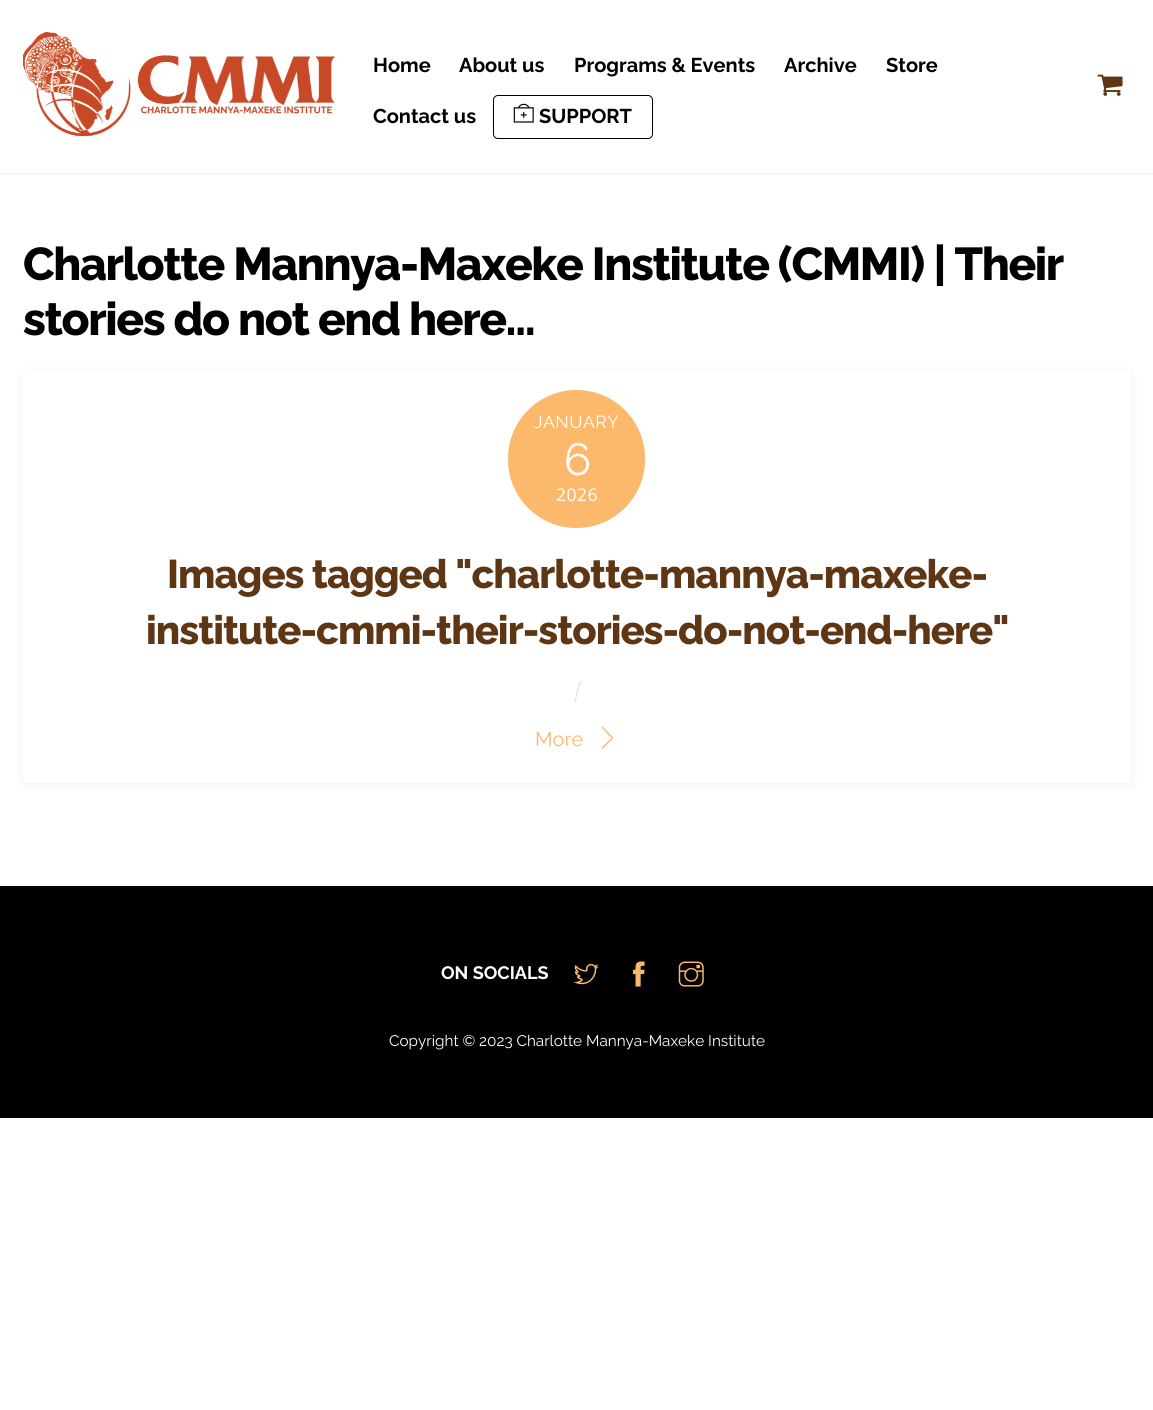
#include <cairo.h>
#include <math.h>
#include <stddef.h>

typedef struct { double x, y; const char *s; } line_t;

static void ink(cairo_t *ctx, unsigned color) {
    cairo_set_source_rgb(ctx, (color >> 16) / 255.0, (color >> 8 & 255) / 255.0, (color & 255) / 255.0);
}

static void write_spaced(cairo_t *ctx, double x, double y, const char *s, double letter, double word) {
    cairo_move_to(ctx, x, y);
    while (*s) {
        char ch[5] = {0};
        int n = 0;
        do ch[n++] = *s++; while ((*s & 0xC0) == 0x80);
        cairo_show_text(ctx, ch);
        cairo_rel_move_to(ctx, letter + word * (*ch == ' '), 0);
    }
}

static void round_path(cairo_t *ctx, double x, double y, double w, double h, double r) {
    cairo_new_sub_path(ctx);
    cairo_arc(ctx, x + w - r, y + h - r, r, 0, M_PI / 2);
    cairo_arc(ctx, x + r, y + h - r, r, M_PI / 2, M_PI);
    cairo_arc(ctx, x + r, y + r, r, M_PI, 1.5 * M_PI);
    cairo_arc(ctx, x + w - r, y + r, r, 1.5 * M_PI, 2 * M_PI);
    cairo_close_path(ctx);
}

static void blur_box(cairo_t *ctx, double x, double y, double w, double h, double r, double blur, double alpha) {
    cairo_push_group_with_content(ctx, CAIRO_CONTENT_ALPHA);
    cairo_set_operator(ctx, CAIRO_OPERATOR_SOURCE);
    for (int i = 15; i >= -15 && fmin(w, h) + blur * i / 3 > 0; i -= 2) {
        double e = blur * i / 6;
        cairo_set_source_rgba(ctx, 0, 0, 0, alpha * erfc((i - 1) / 8.5) / 2);
        round_path(ctx, x - e, y - e, w + 2 * e, h + 2 * e, fmax(0, fmin(r + e + blur * .6, fmin(w, h) / 2 + e)));
        cairo_fill(ctx);
    }
    cairo_pattern_t *soft = cairo_pop_group(ctx);
    cairo_mask(ctx, soft);
    cairo_pattern_destroy(soft);
}

static void paste(cairo_t *ctx, const char *path, double x, double y, double w, double h) {
    cairo_surface_t *image = cairo_image_surface_create_from_png(path);
    cairo_save(ctx);
    cairo_set_source_surface(ctx, image, x, y);
    cairo_rectangle(ctx, x, y, w, h);
    cairo_fill(ctx);
    cairo_restore(ctx);
    cairo_surface_destroy(image);
}

int main(void) {
    cairo_surface_t *surface = cairo_image_surface_create(CAIRO_FORMAT_RGB24, 1153, 1410);
    cairo_t *ctx = cairo_create(surface);
    cairo_font_options_t *options = cairo_font_options_create();
    cairo_font_options_set_hint_metrics(options, CAIRO_HINT_METRICS_OFF);
    cairo_font_options_set_hint_style(options, CAIRO_HINT_STYLE_NONE);
    cairo_set_font_options(ctx, options);
    cairo_set_miter_limit(ctx, 4);
    ink(ctx, 0xFFFFFF);
    cairo_paint(ctx);
    ink(ctx, 0xF2F2F2);
    cairo_rectangle(ctx, 0, 173, 1153, 1);
    cairo_fill(ctx);
    paste(ctx, "media/1.png", 23, 32, 312, 105);
    cairo_select_font_face(ctx, "Raleway", CAIRO_FONT_SLANT_NORMAL, CAIRO_FONT_WEIGHT_BOLD);
    cairo_set_font_size(ctx, 20);
    ink(ctx, 0x000000);
    {
        static const line_t items[] = {
            {373, 72, "Home"},
            {459, 72, "About us"},
            {574, 72, "Programs & Events"},
            {784, 72, "Archive"},
            {886, 72, "Store"},
            {373, 123, "Contact us"},
        };
        for (size_t i = 0; i < sizeof items / sizeof *items; i++) {
            cairo_move_to(ctx, items[i].x, items[i].y);
            cairo_show_text(ctx, items[i].s);
        }
    }
    round_path(ctx, 493.5, 95.5, 159, 43, 4.5);
    cairo_set_line_width(ctx, 1);
    cairo_stroke(ctx);
    paste(ctx, "media/2.png", 513, 103, 21, 20);
    cairo_move_to(ctx, 539, 123);
    cairo_show_text(ctx, "SUPPORT");
    paste(ctx, "media/3.png", 1097, 74, 26, 22);
    cairo_select_font_face(ctx, "Raleway ExtraBold", CAIRO_FONT_SLANT_NORMAL, CAIRO_FONT_WEIGHT_NORMAL);
    cairo_set_font_size(ctx, 46);
    write_spaced(ctx, 23, 280, "Charlotte Mannya-Maxeke Institute (CMMI) | Their", -1.4, 0);
    write_spaced(ctx, 23, 335, "stories do not end here…", -1.4, 0);
    ink(ctx, 0x000000);
    blur_box(ctx, 23, 373, 1108, 412, 0, 5, 0.05);
    ink(ctx, 0xFFFFFF);
    cairo_rectangle(ctx, 23, 370, 1108, 413);
    cairo_fill(ctx);
    ink(ctx, 0xFCB86B);
    round_path(ctx, 508, 390, 137, 138, 68.5);
    cairo_fill(ctx);
    cairo_select_font_face(ctx, "Raleway", CAIRO_FONT_SLANT_NORMAL, CAIRO_FONT_WEIGHT_NORMAL);
    cairo_set_font_size(ctx, 17.5);
    ink(ctx, 0xFFFFFF);
    write_spaced(ctx, 534, 428, "JANUARY", 0.5, 0);
    cairo_set_font_size(ctx, 45);
    write_spaced(ctx, 564, 475, "6", -2, 0);
    cairo_select_font_face(ctx, "Open Sans", CAIRO_FONT_SLANT_NORMAL, CAIRO_FONT_WEIGHT_NORMAL);
    cairo_set_font_size(ctx, 17.5);
    write_spaced(ctx, 556, 501, "2026", 0.5, 0);
    cairo_select_font_face(ctx, "Raleway ExtraBold", CAIRO_FONT_SLANT_NORMAL, CAIRO_FONT_WEIGHT_NORMAL);
    cairo_set_font_size(ctx, 40);
    ink(ctx, 0x5E3614);
    write_spaced(ctx, 167, 588, "Images tagged \"charlotte-mannya-maxeke-", -1, 0);
    write_spaced(ctx, 146, 644, "institute-cmmi-their-stories-do-not-end-here\"", -1, 0);
    ink(ctx, 0xE0E0E0);
    cairo_new_path(ctx);
    cairo_move_to(ctx, 579.5, 681.5);
    cairo_line_to(ctx, 581, 681.5);
    cairo_line_to(ctx, 575, 702.5);
    cairo_line_to(ctx, 574, 702.5);
    cairo_close_path(ctx);
    cairo_fill(ctx);
    cairo_select_font_face(ctx, "Raleway", CAIRO_FONT_SLANT_NORMAL, CAIRO_FONT_WEIGHT_NORMAL);
    cairo_set_font_size(ctx, 20);
    ink(ctx, 0xFCB86B);
    cairo_move_to(ctx, 535, 746);
    cairo_show_text(ctx, "More");
    cairo_new_path(ctx);
    cairo_move_to(ctx, 613.5, 738);
    cairo_line_to(ctx, 602.5, 749);
    cairo_line_to(ctx, 601.5, 748);
    cairo_line_to(ctx, 611.5, 738);
    cairo_line_to(ctx, 601.5, 727.5);
    cairo_line_to(ctx, 602.5, 726.5);
    cairo_close_path(ctx);
    cairo_fill(ctx);
    ink(ctx, 0x000000);
    cairo_rectangle(ctx, 0, 886, 1153, 232);
    cairo_fill(ctx);
    cairo_select_font_face(ctx, "Raleway", CAIRO_FONT_SLANT_NORMAL, CAIRO_FONT_WEIGHT_BOLD);
    cairo_set_font_size(ctx, 18);
    ink(ctx, 0xFFFFFF);
    cairo_move_to(ctx, 441, 979);
    cairo_show_text(ctx, "ON SOCIALS");
    paste(ctx, "media/4.png", 574, 963, 25, 22);
    paste(ctx, "media/5.png", 632, 961, 13, 26);
    paste(ctx, "media/6.png", 678, 961, 26, 26);
    cairo_select_font_face(ctx, "Raleway", CAIRO_FONT_SLANT_NORMAL, CAIRO_FONT_WEIGHT_NORMAL);
    cairo_set_font_size(ctx, 15.3);
    cairo_move_to(ctx, 389, 1046);
    cairo_show_text(ctx, "Copyright © 2023 Charlotte Mannya-Maxeke Institute");
    cairo_surface_write_to_png(surface, "image.png");
    cairo_font_options_destroy(options);
    cairo_destroy(ctx);
    cairo_surface_destroy(surface);
    return 0;
}
